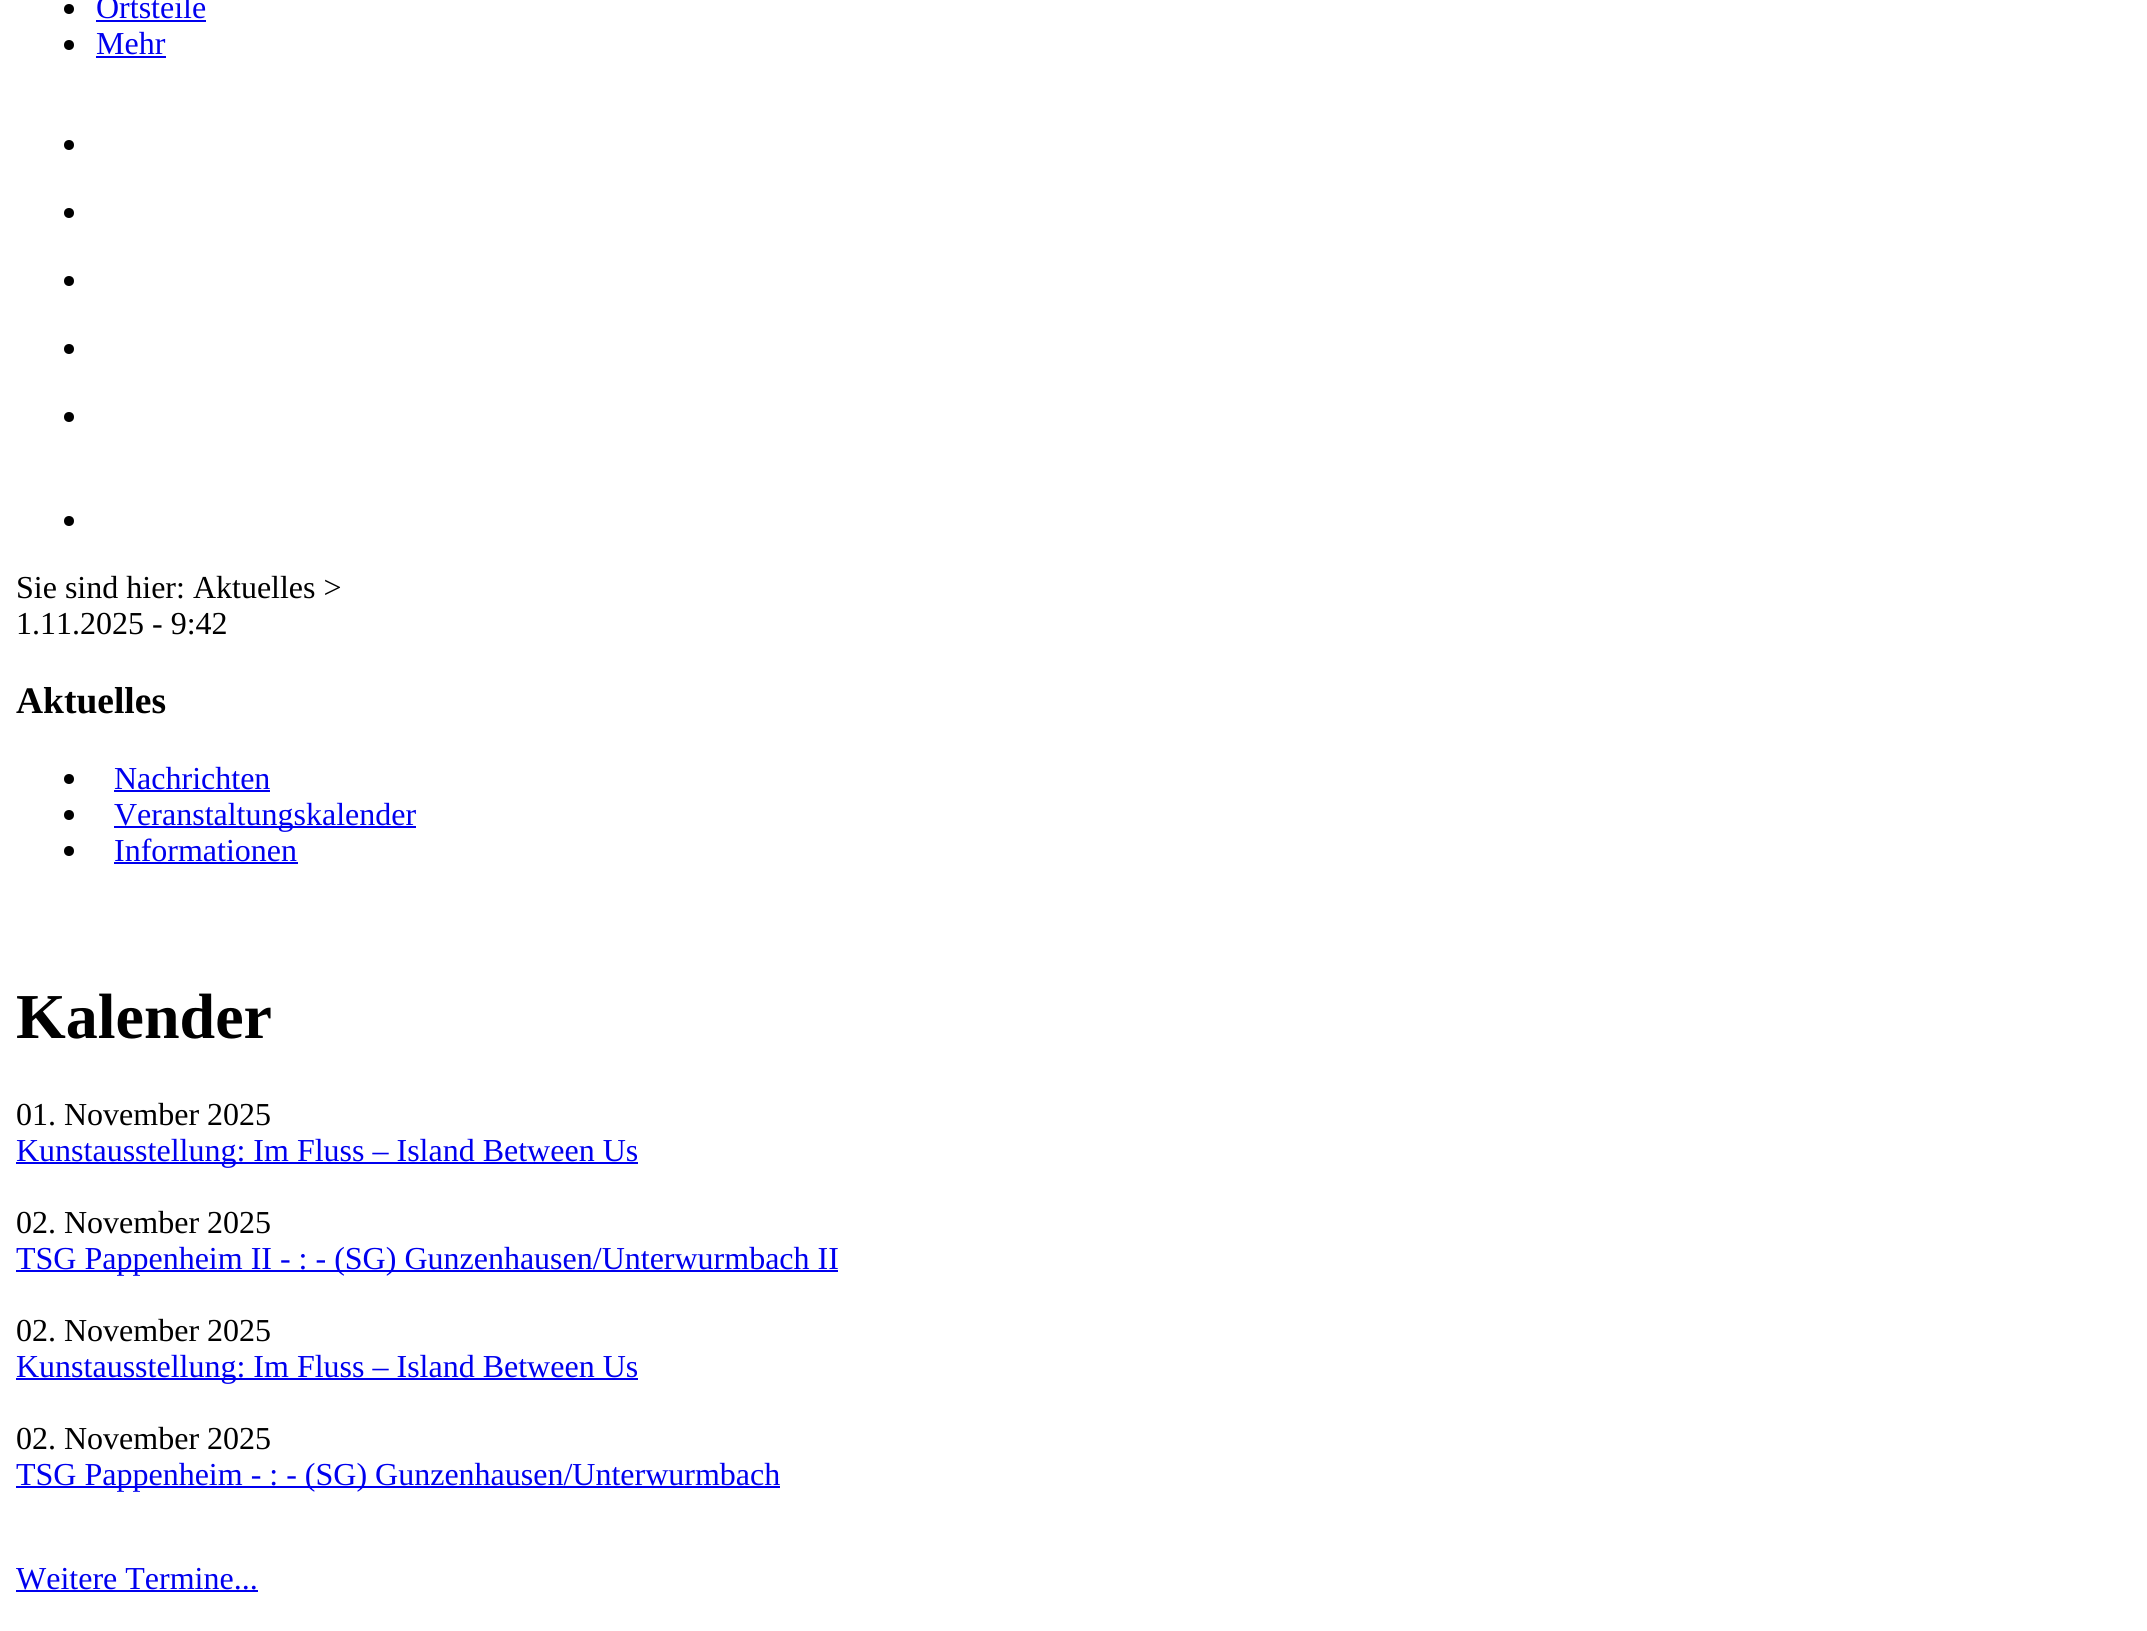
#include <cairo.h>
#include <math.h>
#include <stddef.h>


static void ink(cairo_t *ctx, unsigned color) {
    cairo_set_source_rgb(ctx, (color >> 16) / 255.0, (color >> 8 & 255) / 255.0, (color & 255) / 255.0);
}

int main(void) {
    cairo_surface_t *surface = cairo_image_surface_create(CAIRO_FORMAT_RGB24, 2147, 1631);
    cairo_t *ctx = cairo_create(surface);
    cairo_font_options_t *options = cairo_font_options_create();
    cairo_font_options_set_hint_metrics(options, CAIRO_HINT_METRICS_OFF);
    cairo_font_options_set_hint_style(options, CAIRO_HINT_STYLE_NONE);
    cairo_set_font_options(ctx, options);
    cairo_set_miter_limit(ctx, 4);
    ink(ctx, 0xFFFFFF);
    cairo_paint(ctx);
    ink(ctx, 0x000000);
    cairo_arc(ctx, 69, 9, 5, 0, 2 * M_PI);
    cairo_fill(ctx);
    cairo_select_font_face(ctx, "Liberation Serif", CAIRO_FONT_SLANT_NORMAL, CAIRO_FONT_WEIGHT_NORMAL);
    cairo_set_font_size(ctx, 32);
    ink(ctx, 0x0000EE);
    cairo_move_to(ctx, 96, 18);
    cairo_show_text(ctx, "Ortsteile");
    cairo_rectangle(ctx, 96, 20, 110, 2);
    cairo_fill(ctx);
    ink(ctx, 0x000000);
    cairo_arc(ctx, 69, 45, 5, 0, 2 * M_PI);
    cairo_fill(ctx);
    ink(ctx, 0x0000EE);
    cairo_move_to(ctx, 96, 54);
    cairo_show_text(ctx, "Mehr");
    cairo_rectangle(ctx, 96, 56, 70, 2);
    cairo_fill(ctx);
    ink(ctx, 0x000000);
    cairo_arc(ctx, 69, 145, 5, 0, 2 * M_PI);
    cairo_fill(ctx);
    cairo_arc(ctx, 69, 213, 5, 0, 2 * M_PI);
    cairo_fill(ctx);
    cairo_arc(ctx, 69, 281, 5, 0, 2 * M_PI);
    cairo_fill(ctx);
    cairo_arc(ctx, 69, 349, 5, 0, 2 * M_PI);
    cairo_fill(ctx);
    cairo_arc(ctx, 69, 417, 5, 0, 2 * M_PI);
    cairo_fill(ctx);
    cairo_arc(ctx, 69, 521, 5, 0, 2 * M_PI);
    cairo_fill(ctx);
    cairo_move_to(ctx, 16, 598);
    cairo_show_text(ctx, "Sie sind hier: Aktuelles >");
    cairo_move_to(ctx, 16, 634);
    cairo_show_text(ctx, "1.11.2025 - 9:42");
    cairo_select_font_face(ctx, "Liberation Serif", CAIRO_FONT_SLANT_NORMAL, CAIRO_FONT_WEIGHT_BOLD);
    cairo_set_font_size(ctx, 37.5);
    cairo_move_to(ctx, 16, 713);
    cairo_show_text(ctx, "Aktuelles");
    cairo_new_path(ctx);
    cairo_arc(ctx, 69, 779, 5, 0, 2 * M_PI);
    cairo_fill(ctx);
    cairo_select_font_face(ctx, "Liberation Serif", CAIRO_FONT_SLANT_NORMAL, CAIRO_FONT_WEIGHT_NORMAL);
    cairo_set_font_size(ctx, 32);
    ink(ctx, 0x0000EE);
    cairo_move_to(ctx, 114, 789);
    cairo_show_text(ctx, "Nachrichten");
    cairo_rectangle(ctx, 114, 790, 156, 2);
    cairo_fill(ctx);
    ink(ctx, 0x000000);
    cairo_arc(ctx, 69, 815, 5, 0, 2 * M_PI);
    cairo_fill(ctx);
    ink(ctx, 0x0000EE);
    cairo_rectangle(ctx, 114, 826, 302, 2);
    cairo_fill(ctx);
    cairo_move_to(ctx, 114, 825);
    cairo_show_text(ctx, "Veranstaltungskalender");
    ink(ctx, 0x000000);
    cairo_new_path(ctx);
    cairo_arc(ctx, 69, 851, 5, 0, 2 * M_PI);
    cairo_fill(ctx);
    ink(ctx, 0x0000EE);
    cairo_move_to(ctx, 114, 861);
    cairo_show_text(ctx, "Informationen");
    cairo_rectangle(ctx, 114, 862, 184, 2);
    cairo_fill(ctx);
    cairo_select_font_face(ctx, "Liberation Serif", CAIRO_FONT_SLANT_NORMAL, CAIRO_FONT_WEIGHT_BOLD);
    cairo_set_font_size(ctx, 64);
    ink(ctx, 0x000000);
    cairo_move_to(ctx, 16, 1038);
    cairo_show_text(ctx, "Kalender");
    cairo_select_font_face(ctx, "Liberation Serif", CAIRO_FONT_SLANT_NORMAL, CAIRO_FONT_WEIGHT_NORMAL);
    cairo_set_font_size(ctx, 32);
    cairo_move_to(ctx, 16, 1125);
    cairo_show_text(ctx, "01. November 2025");
    ink(ctx, 0x0000EE);
    cairo_rectangle(ctx, 16, 1162, 622, 2);
    cairo_fill(ctx);
    cairo_move_to(ctx, 16, 1161);
    cairo_show_text(ctx, "Kunstausstellung: Im Fluss – Island Between Us");
    ink(ctx, 0x000000);
    cairo_move_to(ctx, 16, 1233);
    cairo_show_text(ctx, "02. November 2025");
    ink(ctx, 0x0000EE);
    cairo_rectangle(ctx, 16, 1270, 822, 2);
    cairo_fill(ctx);
    cairo_move_to(ctx, 16, 1269);
    cairo_show_text(ctx, "TSG Pappenheim II - : - (SG) Gunzenhausen/Unterwurmbach II");
    ink(ctx, 0x000000);
    cairo_move_to(ctx, 16, 1341);
    cairo_show_text(ctx, "02. November 2025");
    ink(ctx, 0x0000EE);
    cairo_rectangle(ctx, 16, 1378, 622, 2);
    cairo_fill(ctx);
    cairo_move_to(ctx, 16, 1377);
    cairo_show_text(ctx, "Kunstausstellung: Im Fluss – Island Between Us");
    ink(ctx, 0x000000);
    cairo_move_to(ctx, 16, 1449);
    cairo_show_text(ctx, "02. November 2025");
    ink(ctx, 0x0000EE);
    cairo_rectangle(ctx, 16, 1486, 764, 2);
    cairo_fill(ctx);
    cairo_move_to(ctx, 16, 1485);
    cairo_show_text(ctx, "TSG Pappenheim - : - (SG) Gunzenhausen/Unterwurmbach");
    cairo_move_to(ctx, 16, 1589);
    cairo_show_text(ctx, "Weitere Termine...");
    cairo_rectangle(ctx, 16, 1590, 242, 2);
    cairo_fill(ctx);
    cairo_surface_write_to_png(surface, "image.png");
    cairo_font_options_destroy(options);
    cairo_destroy(ctx);
    cairo_surface_destroy(surface);
    return 0;
}
